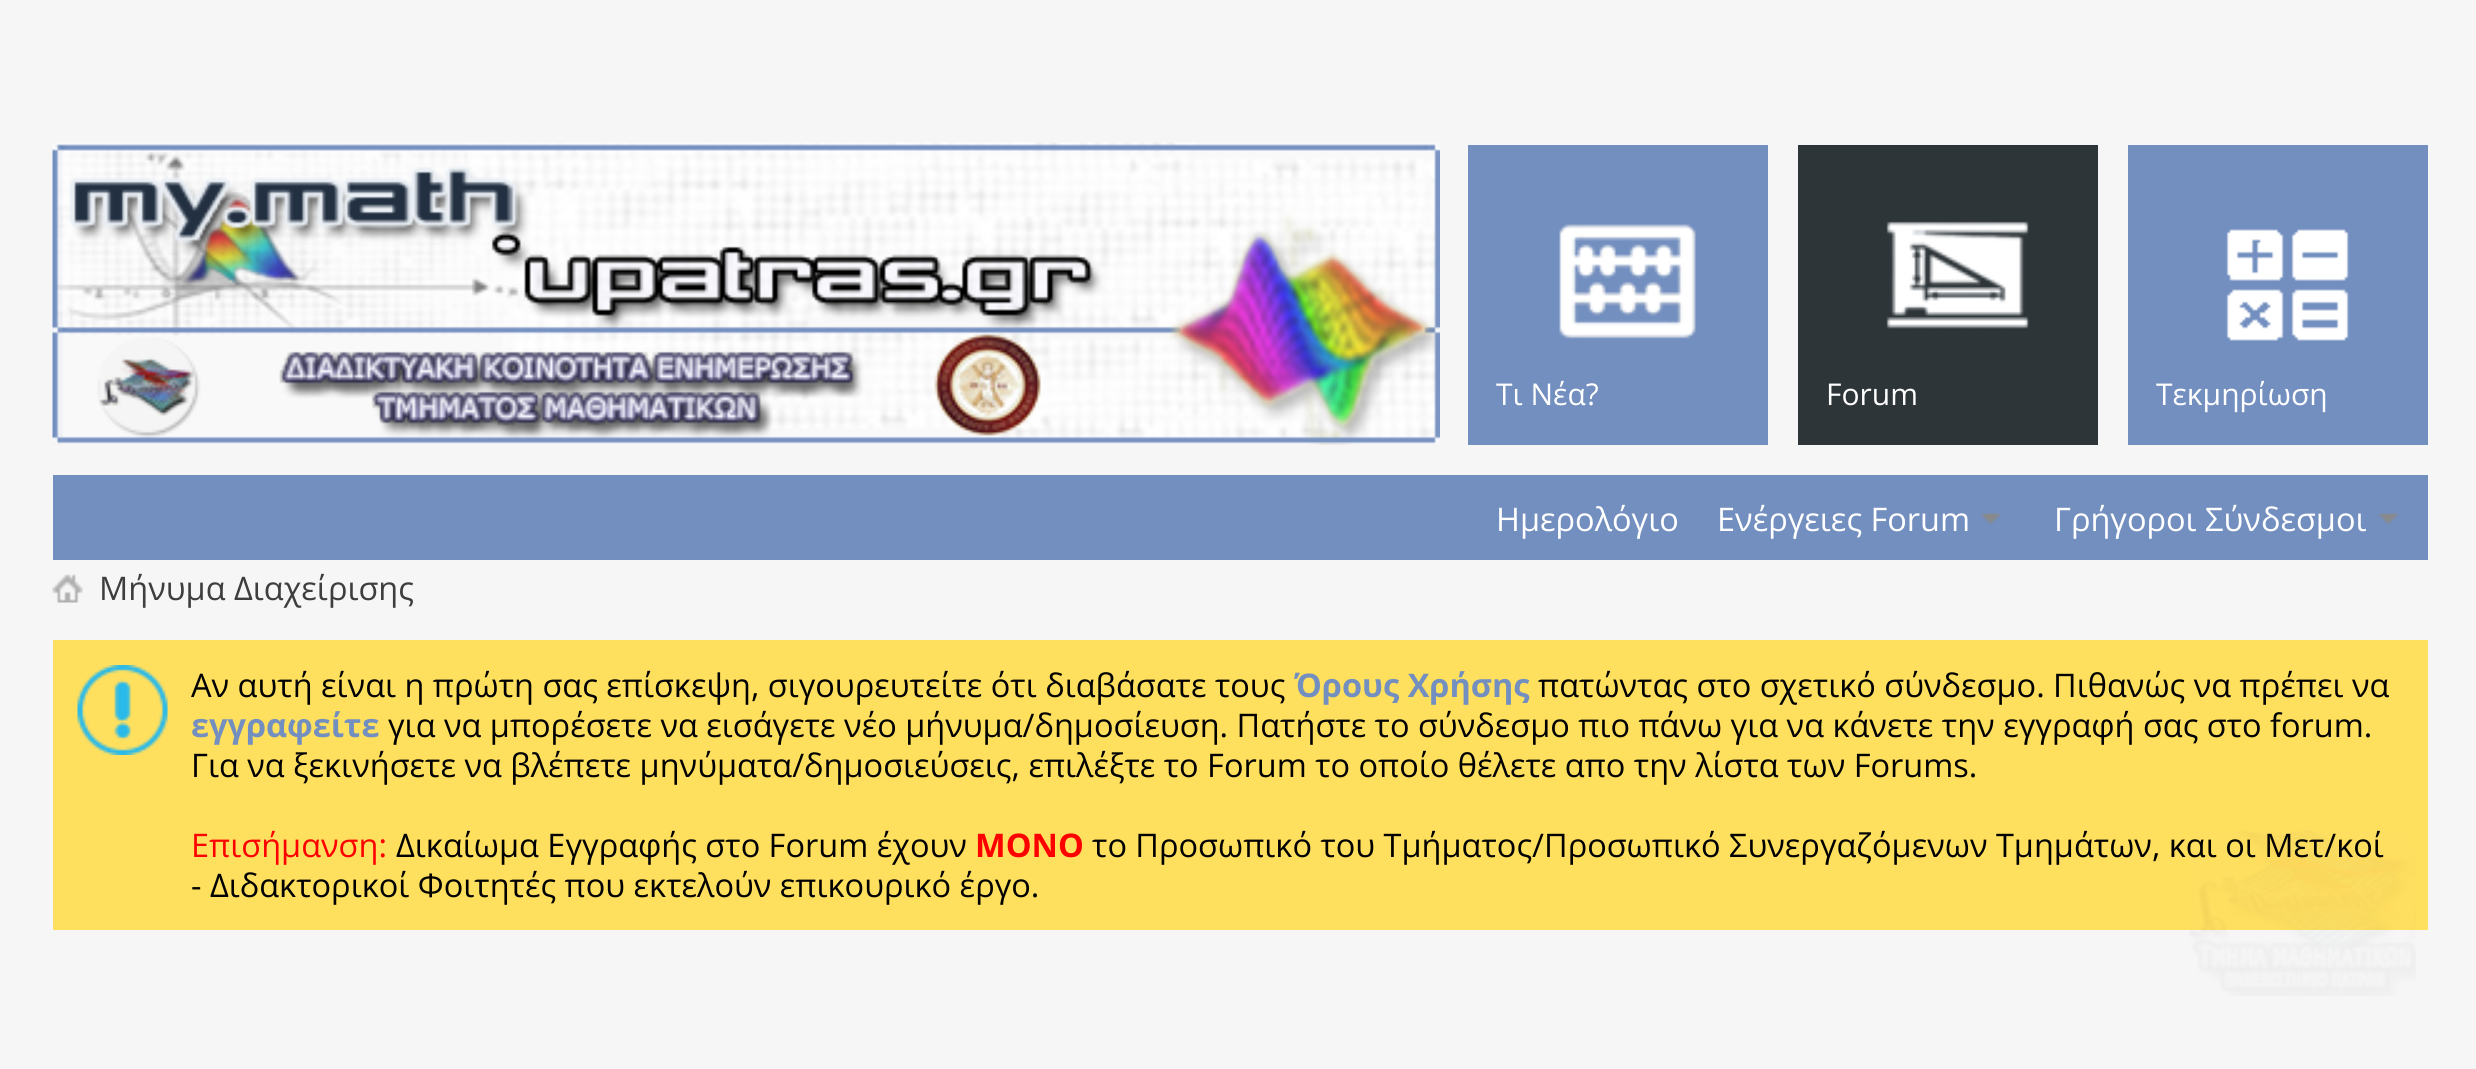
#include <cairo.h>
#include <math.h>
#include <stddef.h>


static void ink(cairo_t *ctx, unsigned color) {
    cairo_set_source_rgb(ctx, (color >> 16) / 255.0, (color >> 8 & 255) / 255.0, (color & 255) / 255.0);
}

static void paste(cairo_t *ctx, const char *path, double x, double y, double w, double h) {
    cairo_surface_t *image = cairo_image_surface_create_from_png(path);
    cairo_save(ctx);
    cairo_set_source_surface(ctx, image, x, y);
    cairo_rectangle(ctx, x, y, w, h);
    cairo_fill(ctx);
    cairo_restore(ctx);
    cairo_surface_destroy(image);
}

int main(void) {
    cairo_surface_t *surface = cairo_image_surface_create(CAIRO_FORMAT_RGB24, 2476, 1069);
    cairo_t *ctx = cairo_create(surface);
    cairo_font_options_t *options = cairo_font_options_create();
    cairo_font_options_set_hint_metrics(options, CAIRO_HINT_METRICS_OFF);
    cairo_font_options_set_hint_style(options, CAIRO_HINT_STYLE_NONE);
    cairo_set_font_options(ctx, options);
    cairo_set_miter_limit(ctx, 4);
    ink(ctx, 0xF6F6F6);
    cairo_paint(ctx);
    ink(ctx, 0x738FBF);
    cairo_rectangle(ctx, 1436, 145, 992, 300);
    cairo_fill(ctx);
    ink(ctx, 0xF6F6F6);
    cairo_rectangle(ctx, 1438, 145, 30, 300);
    cairo_fill(ctx);
    paste(ctx, "media/1.png", 52, 142, 1388, 303);
    paste(ctx, "media/2.png", 1559, 224, 137, 115);
    cairo_select_font_face(ctx, "Open Sans", CAIRO_FONT_SLANT_NORMAL, CAIRO_FONT_WEIGHT_NORMAL);
    cairo_set_font_size(ctx, 30);
    ink(ctx, 0xFFFFFF);
    cairo_move_to(ctx, 1496, 405);
    cairo_show_text(ctx, "Τι Νέα?");
    ink(ctx, 0xF6F6F6);
    cairo_rectangle(ctx, 1768, 145, 30, 300);
    cairo_fill(ctx);
    ink(ctx, 0x2E3539);
    cairo_rectangle(ctx, 1798, 145, 300, 300);
    cairo_fill(ctx);
    paste(ctx, "media/3.png", 1886, 221, 143, 108);
    ink(ctx, 0xFFFFFF);
    cairo_move_to(ctx, 1826, 405);
    cairo_show_text(ctx, "Forum");
    ink(ctx, 0xF6F6F6);
    cairo_rectangle(ctx, 2098, 145, 30, 300);
    cairo_fill(ctx);
    paste(ctx, "media/4.png", 2226, 229, 123, 112);
    ink(ctx, 0xFFFFFF);
    cairo_move_to(ctx, 2156, 405);
    cairo_show_text(ctx, "Τεκμηρίωση");
    ink(ctx, 0x738FBF);
    cairo_rectangle(ctx, 53, 475, 2375, 85);
    cairo_fill(ctx);
    cairo_set_font_size(ctx, 32.5);
    ink(ctx, 0xFFFFFF);
    cairo_move_to(ctx, 1496, 531);
    cairo_show_text(ctx, "Ημερολόγιο");
    cairo_move_to(ctx, 1717, 531);
    cairo_show_text(ctx, "Ενέργειες Forum");
    paste(ctx, "media/5.png", 1980, 513, 21, 12);
    cairo_move_to(ctx, 2054, 531);
    cairo_show_text(ctx, "Γρήγοροι Σύνδεσμοι");
    paste(ctx, "media/6.png", 2377, 513, 22, 12);
    paste(ctx, "media/7.png", 52, 574, 31, 29);
    ink(ctx, 0x3E3E3E);
    cairo_move_to(ctx, 99, 600);
    cairo_show_text(ctx, "Mήνυμα Διαχείρισης");
    ink(ctx, 0xFFDF5E);
    cairo_rectangle(ctx, 53, 640, 2375, 290);
    cairo_fill(ctx);
    paste(ctx, "media/8.png", 77, 665, 91, 90);
    ink(ctx, 0x000000);
    cairo_move_to(ctx, 191, 697);
    cairo_show_text(ctx, "Αν αυτή είναι η πρώτη σας επίσκεψη, σιγουρευτείτε ότι διαβάσατε τους");
    cairo_select_font_face(ctx, "Open Sans", CAIRO_FONT_SLANT_NORMAL, CAIRO_FONT_WEIGHT_BOLD);
    ink(ctx, 0x738FBF);
    cairo_move_to(ctx, 1294, 697);
    cairo_show_text(ctx, "Όρους Χρήσης");
    cairo_select_font_face(ctx, "Open Sans", CAIRO_FONT_SLANT_NORMAL, CAIRO_FONT_WEIGHT_NORMAL);
    ink(ctx, 0x000000);
    cairo_move_to(ctx, 1538, 697);
    cairo_show_text(ctx, "πατώντας στο σχετικό σύνδεσμο. Πιθανώς να πρέπει να");
    cairo_select_font_face(ctx, "Open Sans", CAIRO_FONT_SLANT_NORMAL, CAIRO_FONT_WEIGHT_BOLD);
    ink(ctx, 0x738FBF);
    cairo_move_to(ctx, 191, 737);
    cairo_show_text(ctx, "εγγραφείτε");
    cairo_select_font_face(ctx, "Open Sans", CAIRO_FONT_SLANT_NORMAL, CAIRO_FONT_WEIGHT_NORMAL);
    ink(ctx, 0x000000);
    cairo_move_to(ctx, 388, 737);
    cairo_show_text(ctx, "για να μπορέσετε να εισάγετε νέο μήνυμα/δημοσίευση. Πατήστε το σύνδεσμο πιο πάνω για να κάνετε την εγγραφή σας στο forum.");
    cairo_move_to(ctx, 191, 777);
    cairo_show_text(ctx, "Για να ξεκινήσετε να βλέπετε μηνύματα/δημοσιεύσεις, επιλέξτε το Forum το οποίο θέλετε απο την λίστα των Forums.");
    ink(ctx, 0xFF0000);
    cairo_move_to(ctx, 191, 857);
    cairo_show_text(ctx, "Επισήμανση:");
    ink(ctx, 0x000000);
    cairo_move_to(ctx, 396, 857);
    cairo_show_text(ctx, "Δικαίωμα Εγγραφής στο Forum έχουν");
    cairo_select_font_face(ctx, "Open Sans", CAIRO_FONT_SLANT_NORMAL, CAIRO_FONT_WEIGHT_BOLD);
    ink(ctx, 0xFF0000);
    cairo_move_to(ctx, 975, 857);
    cairo_show_text(ctx, "MONO");
    cairo_select_font_face(ctx, "Open Sans", CAIRO_FONT_SLANT_NORMAL, CAIRO_FONT_WEIGHT_NORMAL);
    ink(ctx, 0x000000);
    cairo_move_to(ctx, 1092, 857);
    cairo_show_text(ctx, "το Προσωπικό του Τμήματος/Προσωπικό Συνεργαζόμενων Τμημάτων, και οι Μετ/κοί");
    cairo_move_to(ctx, 191, 897);
    cairo_show_text(ctx, "- Διδακτορικοί Φοιτητές που εκτελούν επικουρικό έργο.");
    paste(ctx, "media/9.png", 2189, 830, 227, 166);
    cairo_surface_write_to_png(surface, "image.png");
    cairo_font_options_destroy(options);
    cairo_destroy(ctx);
    cairo_surface_destroy(surface);
    return 0;
}
